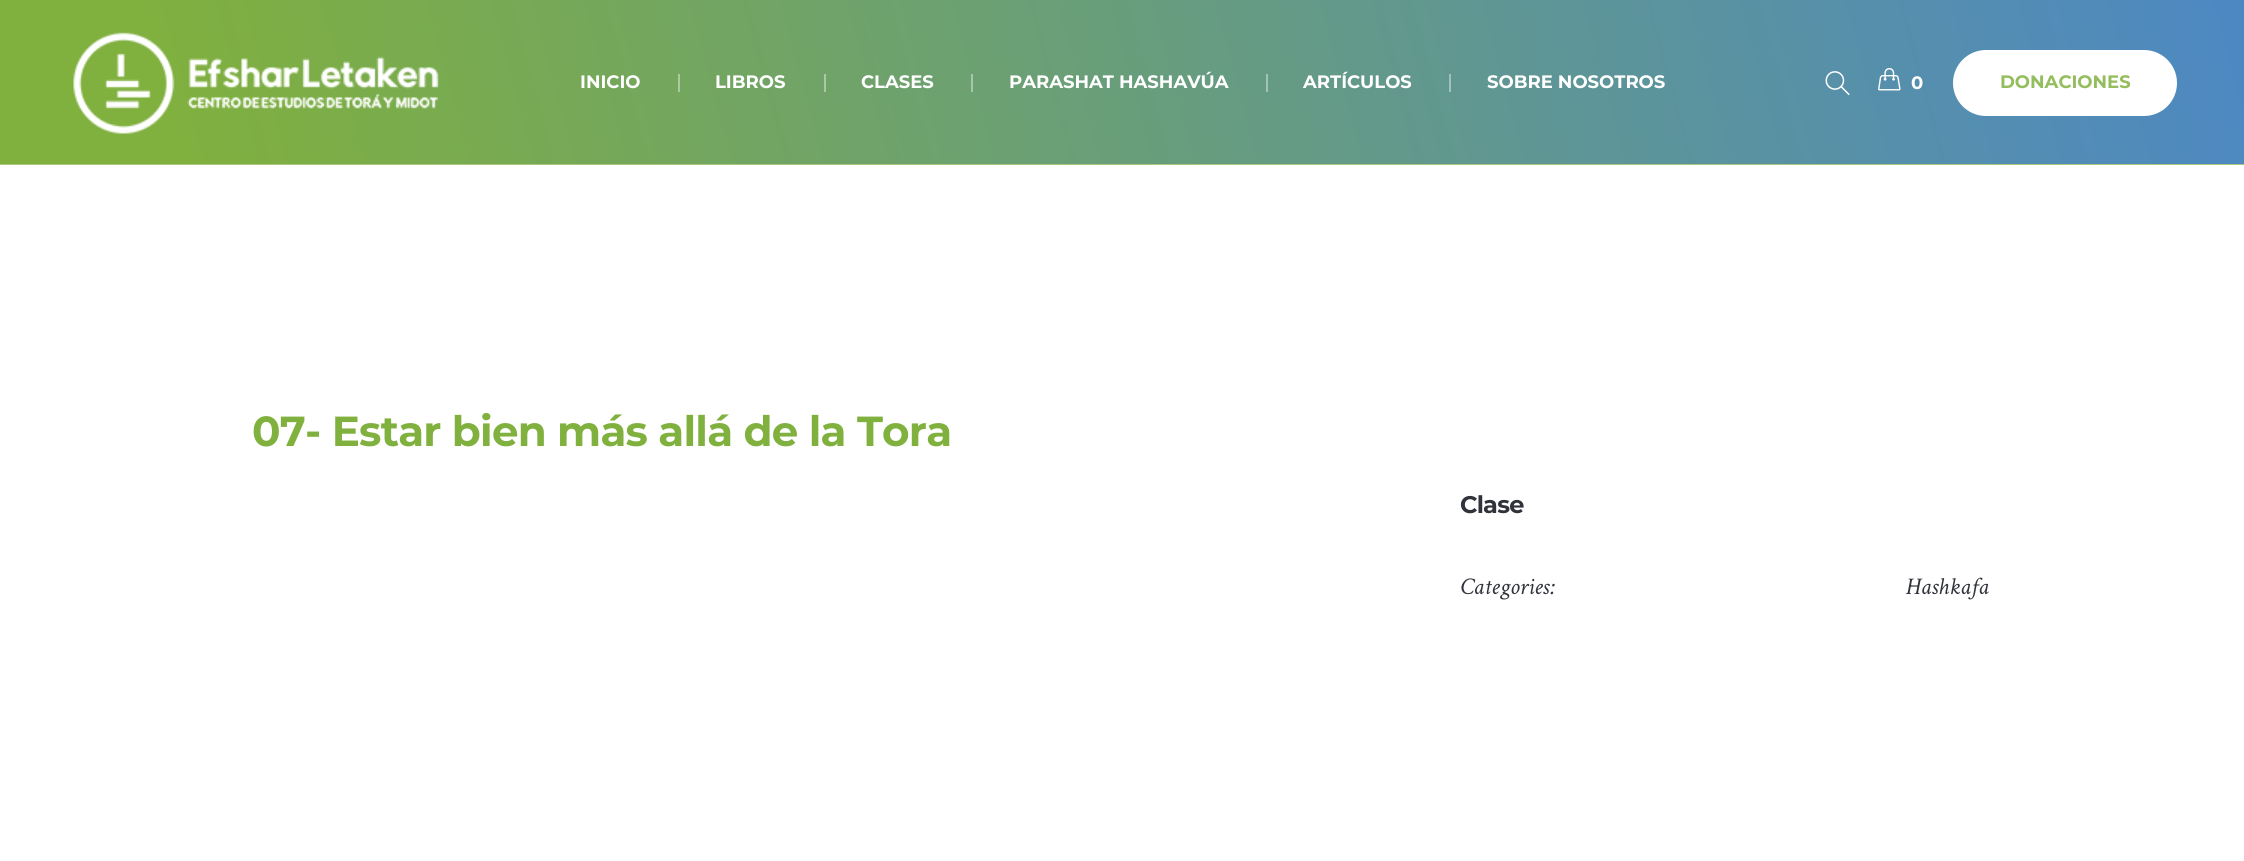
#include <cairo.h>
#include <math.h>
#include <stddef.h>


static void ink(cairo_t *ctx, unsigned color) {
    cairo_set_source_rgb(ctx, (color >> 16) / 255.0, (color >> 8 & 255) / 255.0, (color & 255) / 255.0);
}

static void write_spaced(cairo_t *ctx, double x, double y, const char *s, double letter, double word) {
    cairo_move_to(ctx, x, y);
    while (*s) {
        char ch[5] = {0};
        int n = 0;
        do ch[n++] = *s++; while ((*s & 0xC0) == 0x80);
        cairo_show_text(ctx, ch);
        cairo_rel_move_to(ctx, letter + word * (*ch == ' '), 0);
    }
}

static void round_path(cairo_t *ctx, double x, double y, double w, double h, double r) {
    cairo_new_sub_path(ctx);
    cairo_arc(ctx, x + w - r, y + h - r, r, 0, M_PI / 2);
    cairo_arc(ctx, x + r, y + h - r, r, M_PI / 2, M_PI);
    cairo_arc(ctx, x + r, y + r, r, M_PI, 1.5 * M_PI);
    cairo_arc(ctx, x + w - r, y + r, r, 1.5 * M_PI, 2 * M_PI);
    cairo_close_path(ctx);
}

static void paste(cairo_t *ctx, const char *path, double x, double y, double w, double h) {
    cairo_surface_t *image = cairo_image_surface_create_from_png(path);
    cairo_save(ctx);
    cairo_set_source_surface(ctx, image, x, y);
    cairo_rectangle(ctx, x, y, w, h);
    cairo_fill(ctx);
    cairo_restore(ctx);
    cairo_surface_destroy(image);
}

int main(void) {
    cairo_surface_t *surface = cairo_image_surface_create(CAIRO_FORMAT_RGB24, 2244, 861);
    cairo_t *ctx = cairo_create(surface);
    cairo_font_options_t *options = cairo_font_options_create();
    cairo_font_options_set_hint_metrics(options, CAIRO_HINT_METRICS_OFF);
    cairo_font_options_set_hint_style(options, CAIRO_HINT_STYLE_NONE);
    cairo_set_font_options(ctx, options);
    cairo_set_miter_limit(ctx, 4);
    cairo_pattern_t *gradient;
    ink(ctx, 0xFFFFFF);
    cairo_paint(ctx);
    ink(ctx, 0xA9CA7D);
    cairo_rectangle(ctx, 0, 164, 2244, 1);
    cairo_fill(ctx);
    gradient = cairo_pattern_create_linear(55, 368, 2189, -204);
    cairo_pattern_add_color_stop_rgba(gradient, 0.08, 0.502, 0.69, 0.243, 1);
    cairo_pattern_add_color_stop_rgba(gradient, 1, 0.302, 0.533, 0.765, 1);
    cairo_set_source(ctx, gradient);
    cairo_pattern_destroy(gradient);
    cairo_rectangle(ctx, 0, 0, 2244, 164);
    cairo_fill(ctx);
    paste(ctx, "media/1.png", 73, 32, 366, 102);
    cairo_select_font_face(ctx, "Montserrat", CAIRO_FONT_SLANT_NORMAL, CAIRO_FONT_WEIGHT_BOLD);
    cairo_set_font_size(ctx, 18);
    ink(ctx, 0xFFFFFF);
    cairo_move_to(ctx, 580, 88);
    cairo_show_text(ctx, "INICIO");
    ink(ctx, 0xABCA9F);
    cairo_rectangle(ctx, 678, 74, 2, 18);
    cairo_fill(ctx);
    ink(ctx, 0xFFFFFF);
    cairo_move_to(ctx, 715, 88);
    cairo_show_text(ctx, "LIBROS");
    ink(ctx, 0xA9C8A4);
    cairo_rectangle(ctx, 824, 74, 2, 18);
    cairo_fill(ctx);
    ink(ctx, 0xFFFFFF);
    cairo_move_to(ctx, 861, 88);
    cairo_show_text(ctx, "CLASES");
    ink(ctx, 0xA7C7AA);
    cairo_rectangle(ctx, 971, 74, 2, 18);
    cairo_fill(ctx);
    ink(ctx, 0xFFFFFF);
    cairo_move_to(ctx, 1009, 88);
    cairo_show_text(ctx, "PARASHAT HASHAVÚA");
    ink(ctx, 0xA3C3B5);
    cairo_rectangle(ctx, 1266, 74, 2, 18);
    cairo_fill(ctx);
    ink(ctx, 0xFFFFFF);
    cairo_move_to(ctx, 1303, 88);
    cairo_show_text(ctx, "ARTÍCULOS");
    ink(ctx, 0xA0C1BC);
    cairo_rectangle(ctx, 1449, 74, 2, 18);
    cairo_fill(ctx);
    ink(ctx, 0xFFFFFF);
    cairo_move_to(ctx, 1487, 88);
    cairo_show_text(ctx, "SOBRE NOSOTROS");
    paste(ctx, "media/2.png", 1825, 71, 25, 24);
    paste(ctx, "media/3.png", 1878, 68, 23, 23);
    cairo_move_to(ctx, 1911, 89);
    cairo_show_text(ctx, "0");
    round_path(ctx, 1954, 51, 222, 64, 32);
    cairo_fill_preserve(ctx);
    cairo_stroke(ctx);
    ink(ctx, 0x94BD5D);
    cairo_move_to(ctx, 2000, 88);
    cairo_show_text(ctx, "DONACIONES");
    cairo_set_font_size(ctx, 42);
    ink(ctx, 0x80B03E);
    write_spaced(ctx, 252, 446, "07- Estar bien más allá de la Tora", -0.75, 0);
    cairo_set_font_size(ctx, 24);
    ink(ctx, 0x31333B);
    write_spaced(ctx, 1460, 513, "Clase", -0.75, 0);
    cairo_select_font_face(ctx, "Crimson Text", CAIRO_FONT_SLANT_ITALIC, CAIRO_FONT_WEIGHT_NORMAL);
    cairo_move_to(ctx, 1460, 594);
    cairo_show_text(ctx, "Categories:");
    cairo_move_to(ctx, 1906, 594);
    cairo_show_text(ctx, "Hashkafa");
    cairo_surface_write_to_png(surface, "image.png");
    cairo_font_options_destroy(options);
    cairo_destroy(ctx);
    cairo_surface_destroy(surface);
    return 0;
}
